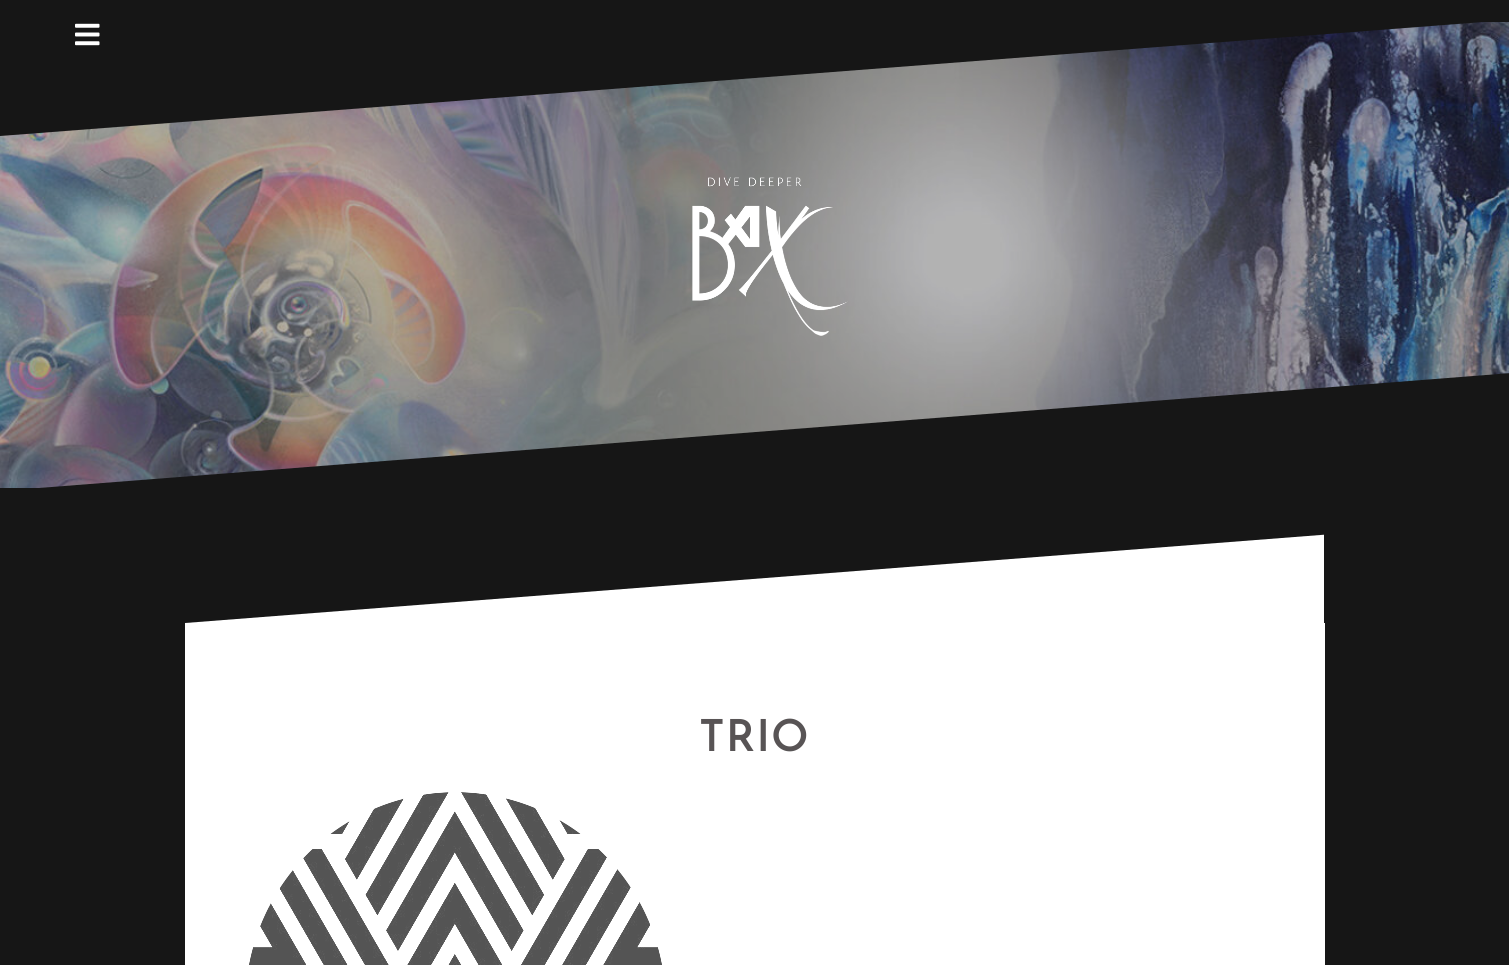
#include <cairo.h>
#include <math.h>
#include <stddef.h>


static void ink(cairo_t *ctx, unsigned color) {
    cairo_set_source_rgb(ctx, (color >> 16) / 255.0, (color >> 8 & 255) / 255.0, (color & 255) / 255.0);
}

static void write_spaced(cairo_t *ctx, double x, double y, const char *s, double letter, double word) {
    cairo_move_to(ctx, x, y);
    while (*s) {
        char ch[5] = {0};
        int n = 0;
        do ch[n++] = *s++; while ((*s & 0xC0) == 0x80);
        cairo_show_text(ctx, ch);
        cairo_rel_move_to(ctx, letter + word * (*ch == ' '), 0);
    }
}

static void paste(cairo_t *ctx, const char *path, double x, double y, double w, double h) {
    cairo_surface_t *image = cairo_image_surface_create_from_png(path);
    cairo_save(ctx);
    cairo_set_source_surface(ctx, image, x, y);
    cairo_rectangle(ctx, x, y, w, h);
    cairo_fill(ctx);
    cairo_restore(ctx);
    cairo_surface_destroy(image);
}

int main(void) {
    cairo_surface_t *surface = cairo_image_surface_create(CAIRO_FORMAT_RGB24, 1509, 965);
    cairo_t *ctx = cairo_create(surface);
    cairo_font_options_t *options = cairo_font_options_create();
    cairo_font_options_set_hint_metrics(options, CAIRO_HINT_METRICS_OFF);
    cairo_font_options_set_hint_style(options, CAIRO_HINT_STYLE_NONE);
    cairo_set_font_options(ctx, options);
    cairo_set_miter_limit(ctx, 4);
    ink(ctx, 0x161616);
    cairo_paint(ctx);
    paste(ctx, "media/1.png", 0, 22, 1509, 466);
    ink(ctx, 0x161616);
    cairo_new_path(ctx);
    cairo_move_to(ctx, 0, 136);
    cairo_line_to(ctx, 0, 20);
    cairo_line_to(ctx, 1509, 20);
    cairo_fill(ctx);
    paste(ctx, "media/2.png", 692, 177, 156, 159);
    cairo_save(ctx);
    cairo_rectangle(ctx, 0, 371, 1509, 119);
    cairo_clip(ctx);
    cairo_new_path(ctx);
    cairo_move_to(ctx, 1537, 371);
    cairo_line_to(ctx, 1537, 491);
    cairo_line_to(ctx, 0, 491);
    cairo_fill(ctx);
    cairo_restore(ctx);
    paste(ctx, "media/3.png", 75, 23, 25, 23);
    cairo_save(ctx);
    cairo_rectangle(ctx, 185, 533, 1139, 91);
    cairo_clip(ctx);
    ink(ctx, 0xFFFFFF);
    cairo_new_path(ctx);
    cairo_move_to(ctx, 1346, 533);
    cairo_line_to(ctx, 1346, 623);
    cairo_line_to(ctx, 185, 623);
    cairo_fill(ctx);
    cairo_restore(ctx);
    ink(ctx, 0xFFFFFF);
    cairo_rectangle(ctx, 185, 623, 1140, 342);
    cairo_fill(ctx);
    cairo_select_font_face(ctx, "Josefin Sans SemiBold", CAIRO_FONT_SLANT_NORMAL, CAIRO_FONT_WEIGHT_NORMAL);
    cairo_set_font_size(ctx, 44);
    ink(ctx, 0x585455);
    write_spaced(ctx, 699, 751, "TRIO", 1, 0);
    paste(ctx, "media/4.png", 249, 792, 413, 173);
    cairo_surface_write_to_png(surface, "image.png");
    cairo_font_options_destroy(options);
    cairo_destroy(ctx);
    cairo_surface_destroy(surface);
    return 0;
}
